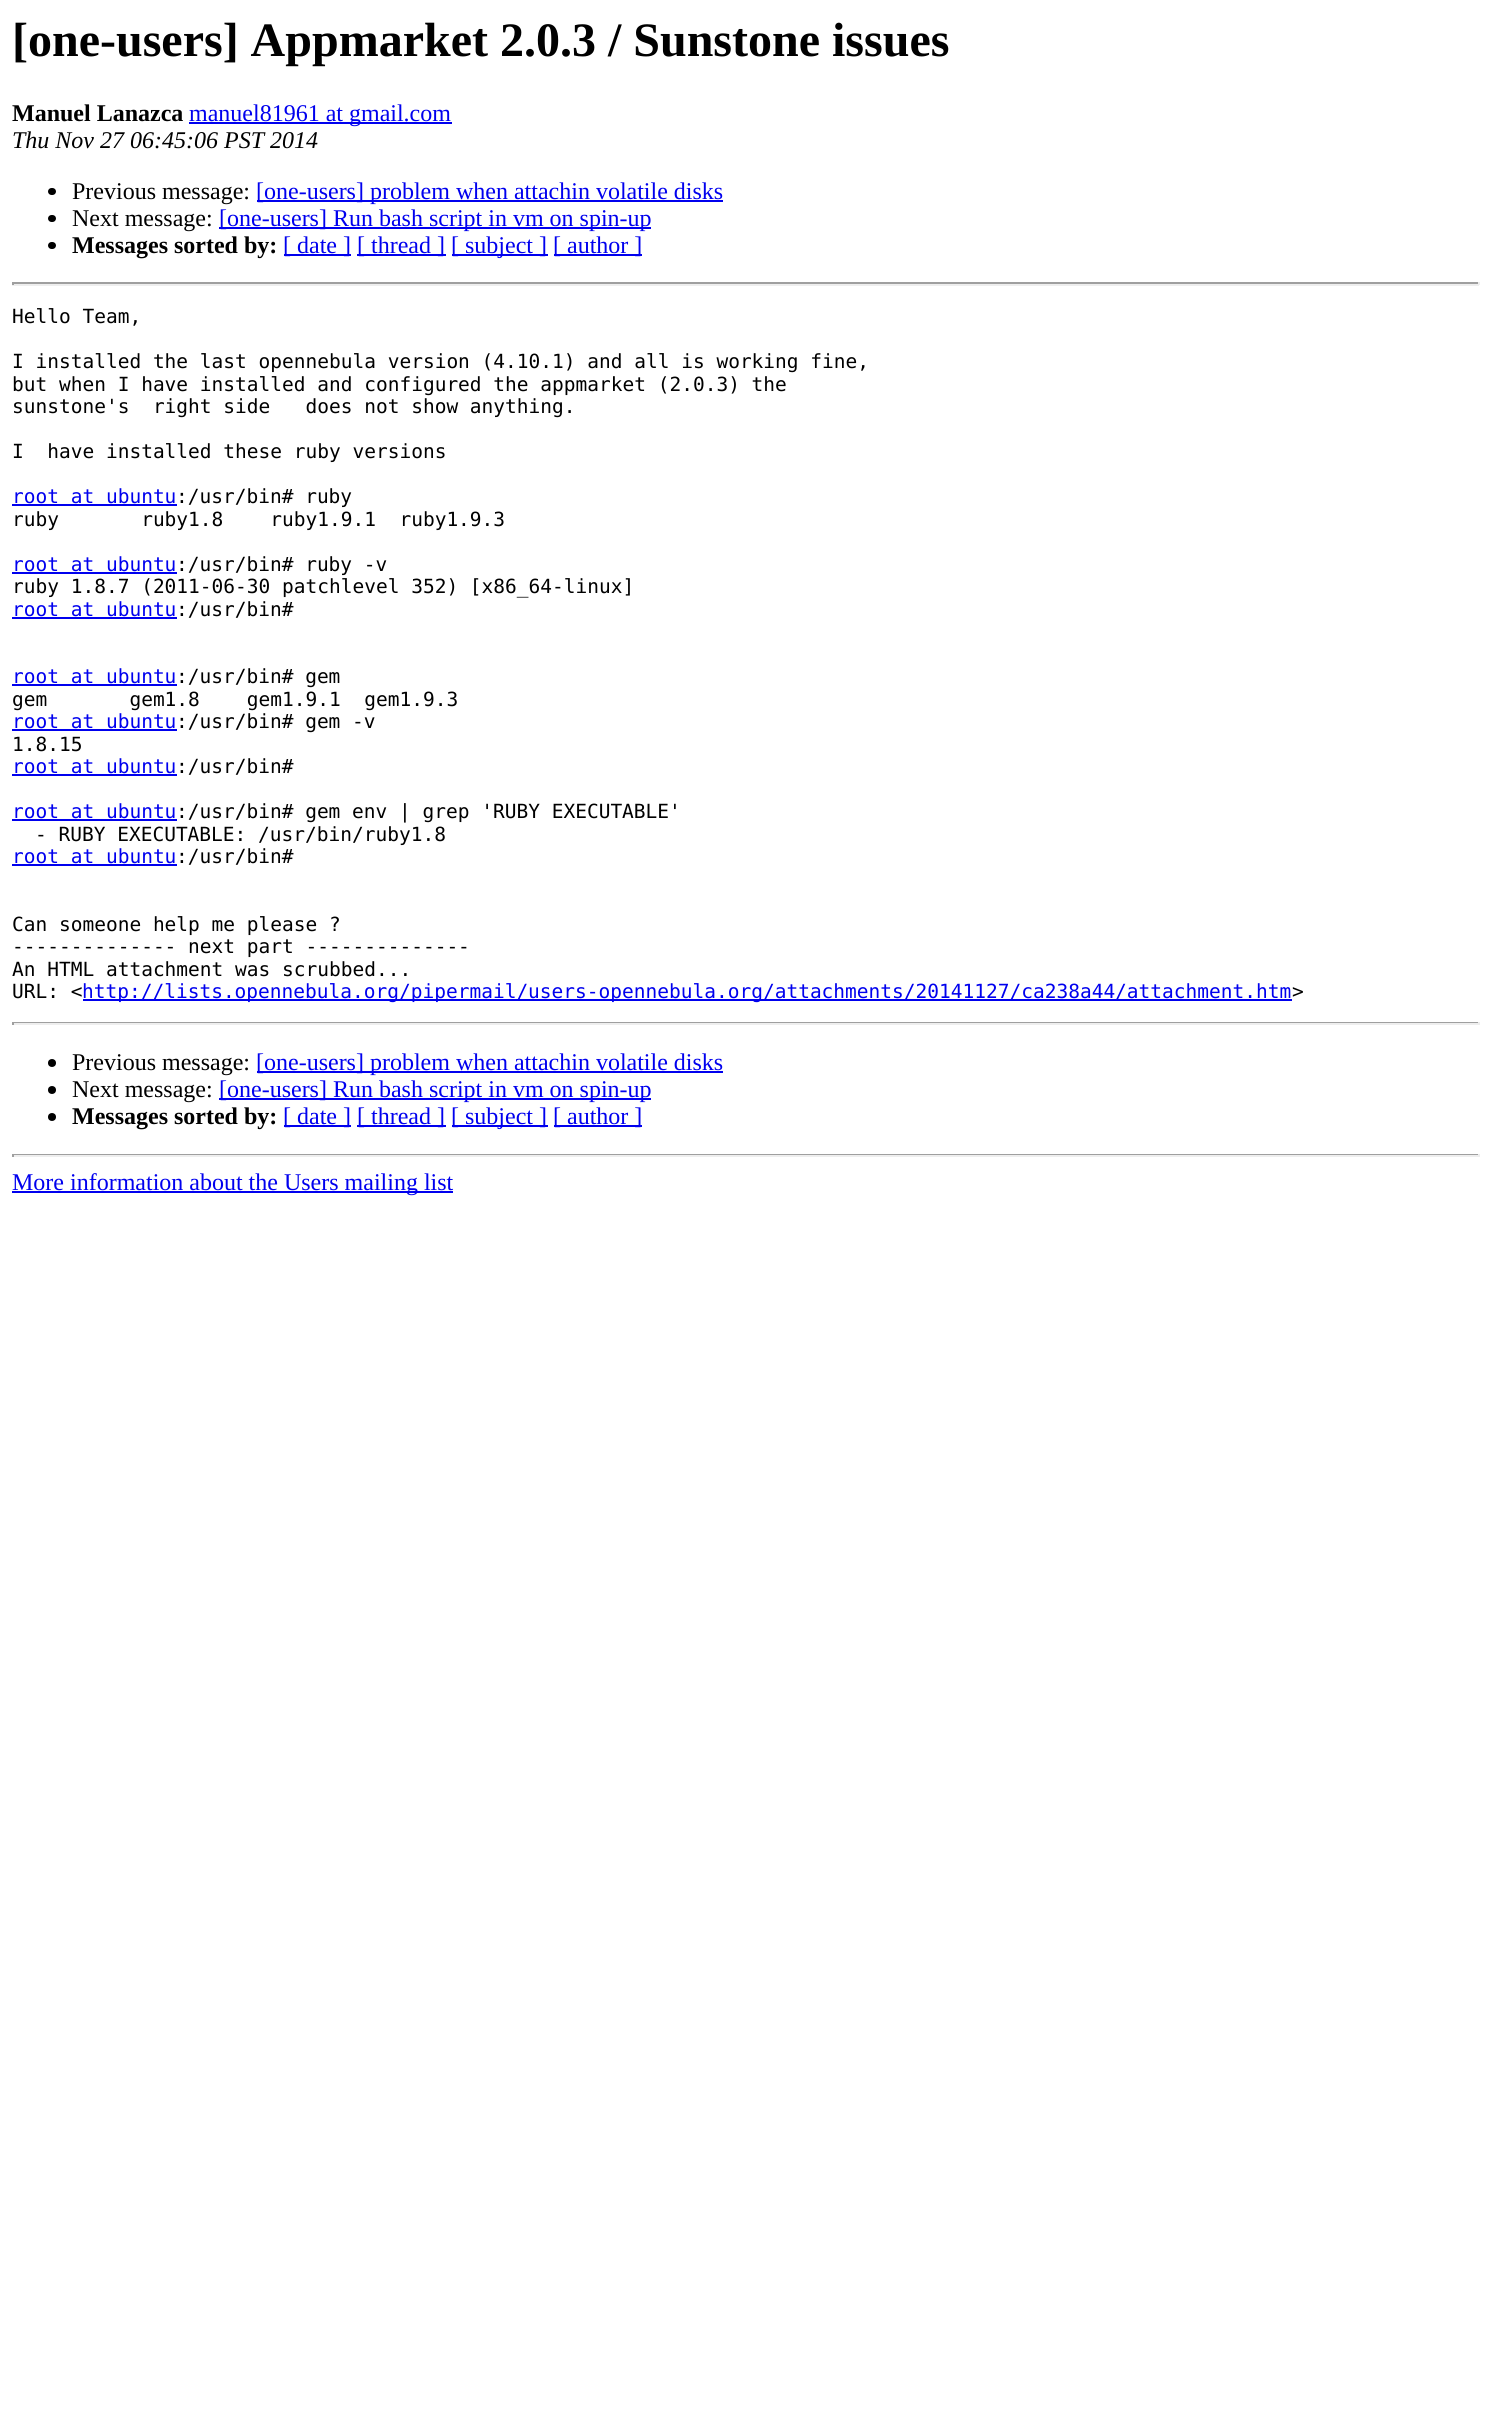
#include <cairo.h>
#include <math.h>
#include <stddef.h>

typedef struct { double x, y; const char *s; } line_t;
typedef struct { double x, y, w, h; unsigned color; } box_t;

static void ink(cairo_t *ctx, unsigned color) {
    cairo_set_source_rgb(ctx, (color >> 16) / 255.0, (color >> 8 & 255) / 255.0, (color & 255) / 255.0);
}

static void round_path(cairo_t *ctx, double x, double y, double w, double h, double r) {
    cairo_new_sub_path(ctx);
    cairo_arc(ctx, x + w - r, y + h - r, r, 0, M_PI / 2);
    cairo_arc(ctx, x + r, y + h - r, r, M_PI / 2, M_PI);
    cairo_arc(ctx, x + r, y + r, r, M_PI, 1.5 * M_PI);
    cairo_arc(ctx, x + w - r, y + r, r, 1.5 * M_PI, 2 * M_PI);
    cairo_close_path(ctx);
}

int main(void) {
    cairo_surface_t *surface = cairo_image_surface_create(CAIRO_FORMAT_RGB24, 1491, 2433);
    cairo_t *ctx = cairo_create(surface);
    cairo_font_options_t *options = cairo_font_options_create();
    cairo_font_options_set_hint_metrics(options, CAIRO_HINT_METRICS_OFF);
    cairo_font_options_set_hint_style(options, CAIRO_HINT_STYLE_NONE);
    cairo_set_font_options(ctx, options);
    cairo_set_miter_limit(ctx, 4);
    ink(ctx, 0xFFFFFF);
    cairo_paint(ctx);
    cairo_select_font_face(ctx, "Liberation Serif", CAIRO_FONT_SLANT_NORMAL, CAIRO_FONT_WEIGHT_BOLD);
    cairo_set_font_size(ctx, 48);
    ink(ctx, 0x000000);
    cairo_move_to(ctx, 12, 56);
    cairo_show_text(ctx, "[one-users] Appmarket 2.0.3 / Sunstone issues");
    cairo_set_font_size(ctx, 24);
    cairo_move_to(ctx, 12, 121);
    cairo_show_text(ctx, "Manuel Lanazca");
    ink(ctx, 0x0000EE);
    cairo_rectangle(ctx, 189, 122, 263, 2);
    cairo_fill(ctx);
    cairo_select_font_face(ctx, "Liberation Serif", CAIRO_FONT_SLANT_NORMAL, CAIRO_FONT_WEIGHT_NORMAL);
    cairo_move_to(ctx, 189, 121);
    cairo_show_text(ctx, "manuel81961 at gmail.com");
    cairo_select_font_face(ctx, "Liberation Serif", CAIRO_FONT_SLANT_ITALIC, CAIRO_FONT_WEIGHT_NORMAL);
    ink(ctx, 0x000000);
    cairo_move_to(ctx, 12, 148);
    cairo_show_text(ctx, "Thu Nov 27 06:45:06 PST 2014");
    round_path(ctx, 48, 188, 8, 7, 3.5);
    cairo_fill(ctx);
    cairo_select_font_face(ctx, "Liberation Serif", CAIRO_FONT_SLANT_NORMAL, CAIRO_FONT_WEIGHT_NORMAL);
    cairo_move_to(ctx, 72, 199);
    cairo_show_text(ctx, "Previous message:");
    ink(ctx, 0x0000EE);
    cairo_rectangle(ctx, 257, 200, 466, 2);
    cairo_fill(ctx);
    cairo_move_to(ctx, 256, 199);
    cairo_show_text(ctx, "[one-users] problem when attachin volatile disks");
    ink(ctx, 0x000000);
    round_path(ctx, 48, 215, 8, 7, 3.5);
    cairo_fill(ctx);
    cairo_move_to(ctx, 72, 226);
    cairo_show_text(ctx, "Next message:");
    ink(ctx, 0x0000EE);
    cairo_rectangle(ctx, 219, 227, 432, 2);
    cairo_fill(ctx);
    cairo_move_to(ctx, 219, 226);
    cairo_show_text(ctx, "[one-users] Run bash script in vm on spin-up");
    ink(ctx, 0x000000);
    round_path(ctx, 48, 242, 8, 7, 3.5);
    cairo_fill(ctx);
    cairo_select_font_face(ctx, "Liberation Serif", CAIRO_FONT_SLANT_NORMAL, CAIRO_FONT_WEIGHT_BOLD);
    cairo_move_to(ctx, 72, 253);
    cairo_show_text(ctx, "Messages sorted by:");
    ink(ctx, 0x0000EE);
    cairo_rectangle(ctx, 284, 254, 67, 2);
    cairo_fill(ctx);
    cairo_select_font_face(ctx, "Liberation Serif", CAIRO_FONT_SLANT_NORMAL, CAIRO_FONT_WEIGHT_NORMAL);
    cairo_move_to(ctx, 283, 253);
    cairo_show_text(ctx, "[ date ]");
    cairo_rectangle(ctx, 357, 254, 89, 2);
    cairo_fill(ctx);
    cairo_move_to(ctx, 357, 253);
    cairo_show_text(ctx, "[ thread ]");
    cairo_rectangle(ctx, 452, 254, 96, 2);
    cairo_fill(ctx);
    cairo_move_to(ctx, 451, 253);
    cairo_show_text(ctx, "[ subject ]");
    cairo_rectangle(ctx, 554, 254, 88, 2);
    cairo_fill(ctx);
    cairo_move_to(ctx, 553, 253);
    cairo_show_text(ctx, "[ author ]");
    {
        static const box_t items[] = {
            {12, 282, 1467, 2, 0x9F9F9F},
            {1478, 282, 2, 3, 0xEEEEEE},
            {12, 284, 1467, 2, 0xEEEEEE},
            {12, 282, 2, 3, 0x9F9F9F},
        };
        for (size_t i = 0; i < sizeof items / sizeof *items; i++) {
            ink(ctx, items[i].color);
            cairo_rectangle(ctx, items[i].x, items[i].y, items[i].w, items[i].h);
            cairo_fill(ctx);
        }
    }
    cairo_select_font_face(ctx, "DejaVu Sans Mono", CAIRO_FONT_SLANT_NORMAL, CAIRO_FONT_WEIGHT_NORMAL);
    cairo_set_font_size(ctx, 19.5);
    ink(ctx, 0x000000);
    {
        static const line_t items[] = {
            {12, 323, "Hello Team,"},
            {12, 368, "I installed the last opennebula version (4.10.1) and all is working fine,"},
            {12, 391, "but when I have installed and configured the appmarket (2.0.3) the"},
            {12, 413, "sunstone's  right side   does not show anything."},
            {12, 458, "I  have installed these ruby versions"},
        };
        for (size_t i = 0; i < sizeof items / sizeof *items; i++) {
            cairo_move_to(ctx, items[i].x, items[i].y);
            cairo_show_text(ctx, items[i].s);
        }
    }
    ink(ctx, 0x0000EE);
    cairo_move_to(ctx, 12, 503);
    cairo_show_text(ctx, "root at ubuntu");
    cairo_rectangle(ctx, 12, 504, 165, 2);
    cairo_fill(ctx);
    ink(ctx, 0x000000);
    cairo_move_to(ctx, 176, 503);
    cairo_show_text(ctx, ":/usr/bin# ruby");
    cairo_move_to(ctx, 12, 526);
    cairo_show_text(ctx, "ruby       ruby1.8    ruby1.9.1  ruby1.9.3");
    ink(ctx, 0x0000EE);
    cairo_move_to(ctx, 12, 571);
    cairo_show_text(ctx, "root at ubuntu");
    cairo_rectangle(ctx, 12, 572, 165, 2);
    cairo_fill(ctx);
    ink(ctx, 0x000000);
    cairo_move_to(ctx, 176, 571);
    cairo_show_text(ctx, ":/usr/bin# ruby -v");
    cairo_move_to(ctx, 12, 593);
    cairo_show_text(ctx, "ruby 1.8.7 (2011-06-30 patchlevel 352) [x86_64-linux]");
    ink(ctx, 0x0000EE);
    cairo_move_to(ctx, 12, 616);
    cairo_show_text(ctx, "root at ubuntu");
    cairo_rectangle(ctx, 12, 617, 165, 2);
    cairo_fill(ctx);
    ink(ctx, 0x000000);
    cairo_move_to(ctx, 176, 616);
    cairo_show_text(ctx, ":/usr/bin#");
    ink(ctx, 0x0000EE);
    cairo_move_to(ctx, 12, 683);
    cairo_show_text(ctx, "root at ubuntu");
    cairo_rectangle(ctx, 12, 684, 165, 2);
    cairo_fill(ctx);
    ink(ctx, 0x000000);
    cairo_move_to(ctx, 176, 683);
    cairo_show_text(ctx, ":/usr/bin# gem");
    cairo_move_to(ctx, 12, 706);
    cairo_show_text(ctx, "gem       gem1.8    gem1.9.1  gem1.9.3");
    ink(ctx, 0x0000EE);
    cairo_move_to(ctx, 12, 728);
    cairo_show_text(ctx, "root at ubuntu");
    cairo_rectangle(ctx, 12, 729, 165, 2);
    cairo_fill(ctx);
    ink(ctx, 0x000000);
    cairo_move_to(ctx, 176, 728);
    cairo_show_text(ctx, ":/usr/bin# gem -v");
    cairo_move_to(ctx, 12, 751);
    cairo_show_text(ctx, "1.8.15");
    ink(ctx, 0x0000EE);
    cairo_move_to(ctx, 12, 773);
    cairo_show_text(ctx, "root at ubuntu");
    cairo_rectangle(ctx, 12, 774, 165, 2);
    cairo_fill(ctx);
    ink(ctx, 0x000000);
    cairo_move_to(ctx, 176, 773);
    cairo_show_text(ctx, ":/usr/bin#");
    ink(ctx, 0x0000EE);
    cairo_move_to(ctx, 12, 818);
    cairo_show_text(ctx, "root at ubuntu");
    cairo_rectangle(ctx, 12, 819, 165, 2);
    cairo_fill(ctx);
    ink(ctx, 0x000000);
    cairo_move_to(ctx, 176, 818);
    cairo_show_text(ctx, ":/usr/bin# gem env | grep 'RUBY EXECUTABLE'");
    cairo_move_to(ctx, 35, 841);
    cairo_show_text(ctx, "- RUBY EXECUTABLE: /usr/bin/ruby1.8");
    ink(ctx, 0x0000EE);
    cairo_move_to(ctx, 12, 863);
    cairo_show_text(ctx, "root at ubuntu");
    cairo_rectangle(ctx, 12, 864, 165, 2);
    cairo_fill(ctx);
    ink(ctx, 0x000000);
    {
        static const line_t items[] = {
            {176, 863, ":/usr/bin#"},
            {12, 931, "Can someone help me please ?"},
            {12, 953, "-------------- next part --------------"},
            {12, 976, "An HTML attachment was scrubbed..."},
            {12, 998, "URL: <"},
        };
        for (size_t i = 0; i < sizeof items / sizeof *items; i++) {
            cairo_move_to(ctx, items[i].x, items[i].y);
            cairo_show_text(ctx, items[i].s);
        }
    }
    ink(ctx, 0x0000EE);
    cairo_rectangle(ctx, 83, 999, 1209, 2);
    cairo_fill(ctx);
    cairo_move_to(ctx, 82, 998);
    cairo_show_text(ctx, "http://lists.opennebula.org/pipermail/users-opennebula.org/attachments/20141127/ca238a44/attachment.htm");
    ink(ctx, 0x000000);
    cairo_move_to(ctx, 1292, 998);
    cairo_show_text(ctx, ">");
    {
        static const box_t items[] = {
            {12, 1022, 1467, 1, 0x9F9F9F},
            {1478, 1022, 2, 3, 0xEEEEEE},
            {12, 1023, 1467, 2, 0xEEEEEE},
            {12, 1022, 2, 3, 0x9F9F9F},
        };
        for (size_t i = 0; i < sizeof items / sizeof *items; i++) {
            ink(ctx, items[i].color);
            cairo_rectangle(ctx, items[i].x, items[i].y, items[i].w, items[i].h);
            cairo_fill(ctx);
        }
    }
    ink(ctx, 0x000000);
    cairo_new_path(ctx);
    cairo_arc(ctx, 52, 1063, 4, 0, 2 * M_PI);
    cairo_fill(ctx);
    cairo_select_font_face(ctx, "Liberation Serif", CAIRO_FONT_SLANT_NORMAL, CAIRO_FONT_WEIGHT_NORMAL);
    cairo_set_font_size(ctx, 24);
    cairo_move_to(ctx, 72, 1070);
    cairo_show_text(ctx, "Previous message:");
    ink(ctx, 0x0000EE);
    cairo_rectangle(ctx, 257, 1071, 466, 2);
    cairo_fill(ctx);
    cairo_move_to(ctx, 256, 1070);
    cairo_show_text(ctx, "[one-users] problem when attachin volatile disks");
    ink(ctx, 0x000000);
    cairo_new_path(ctx);
    cairo_arc(ctx, 52, 1090, 4, 0, 2 * M_PI);
    cairo_fill(ctx);
    cairo_move_to(ctx, 72, 1097);
    cairo_show_text(ctx, "Next message:");
    ink(ctx, 0x0000EE);
    cairo_rectangle(ctx, 219, 1098, 432, 2);
    cairo_fill(ctx);
    cairo_move_to(ctx, 219, 1097);
    cairo_show_text(ctx, "[one-users] Run bash script in vm on spin-up");
    ink(ctx, 0x000000);
    cairo_new_path(ctx);
    cairo_arc(ctx, 52, 1117, 4, 0, 2 * M_PI);
    cairo_fill(ctx);
    cairo_select_font_face(ctx, "Liberation Serif", CAIRO_FONT_SLANT_NORMAL, CAIRO_FONT_WEIGHT_BOLD);
    cairo_move_to(ctx, 72, 1124);
    cairo_show_text(ctx, "Messages sorted by:");
    ink(ctx, 0x0000EE);
    cairo_rectangle(ctx, 284, 1125, 67, 2);
    cairo_fill(ctx);
    cairo_select_font_face(ctx, "Liberation Serif", CAIRO_FONT_SLANT_NORMAL, CAIRO_FONT_WEIGHT_NORMAL);
    cairo_move_to(ctx, 283, 1124);
    cairo_show_text(ctx, "[ date ]");
    cairo_rectangle(ctx, 357, 1125, 89, 2);
    cairo_fill(ctx);
    cairo_move_to(ctx, 357, 1124);
    cairo_show_text(ctx, "[ thread ]");
    cairo_rectangle(ctx, 452, 1125, 96, 2);
    cairo_fill(ctx);
    cairo_move_to(ctx, 451, 1124);
    cairo_show_text(ctx, "[ subject ]");
    cairo_rectangle(ctx, 554, 1125, 88, 2);
    cairo_fill(ctx);
    cairo_move_to(ctx, 553, 1124);
    cairo_show_text(ctx, "[ author ]");
    {
        static const box_t items[] = {
            {12, 1154, 1467, 1, 0x9F9F9F},
            {1478, 1154, 2, 3, 0xEEEEEE},
            {12, 1155, 1467, 2, 0xEEEEEE},
            {12, 1154, 2, 3, 0x9F9F9F},
            {12, 1191, 441, 2, 0x0000EE},
        };
        for (size_t i = 0; i < sizeof items / sizeof *items; i++) {
            ink(ctx, items[i].color);
            cairo_rectangle(ctx, items[i].x, items[i].y, items[i].w, items[i].h);
            cairo_fill(ctx);
        }
    }
    cairo_move_to(ctx, 12, 1190);
    cairo_show_text(ctx, "More information about the Users mailing list");
    cairo_surface_write_to_png(surface, "image.png");
    cairo_font_options_destroy(options);
    cairo_destroy(ctx);
    cairo_surface_destroy(surface);
    return 0;
}
